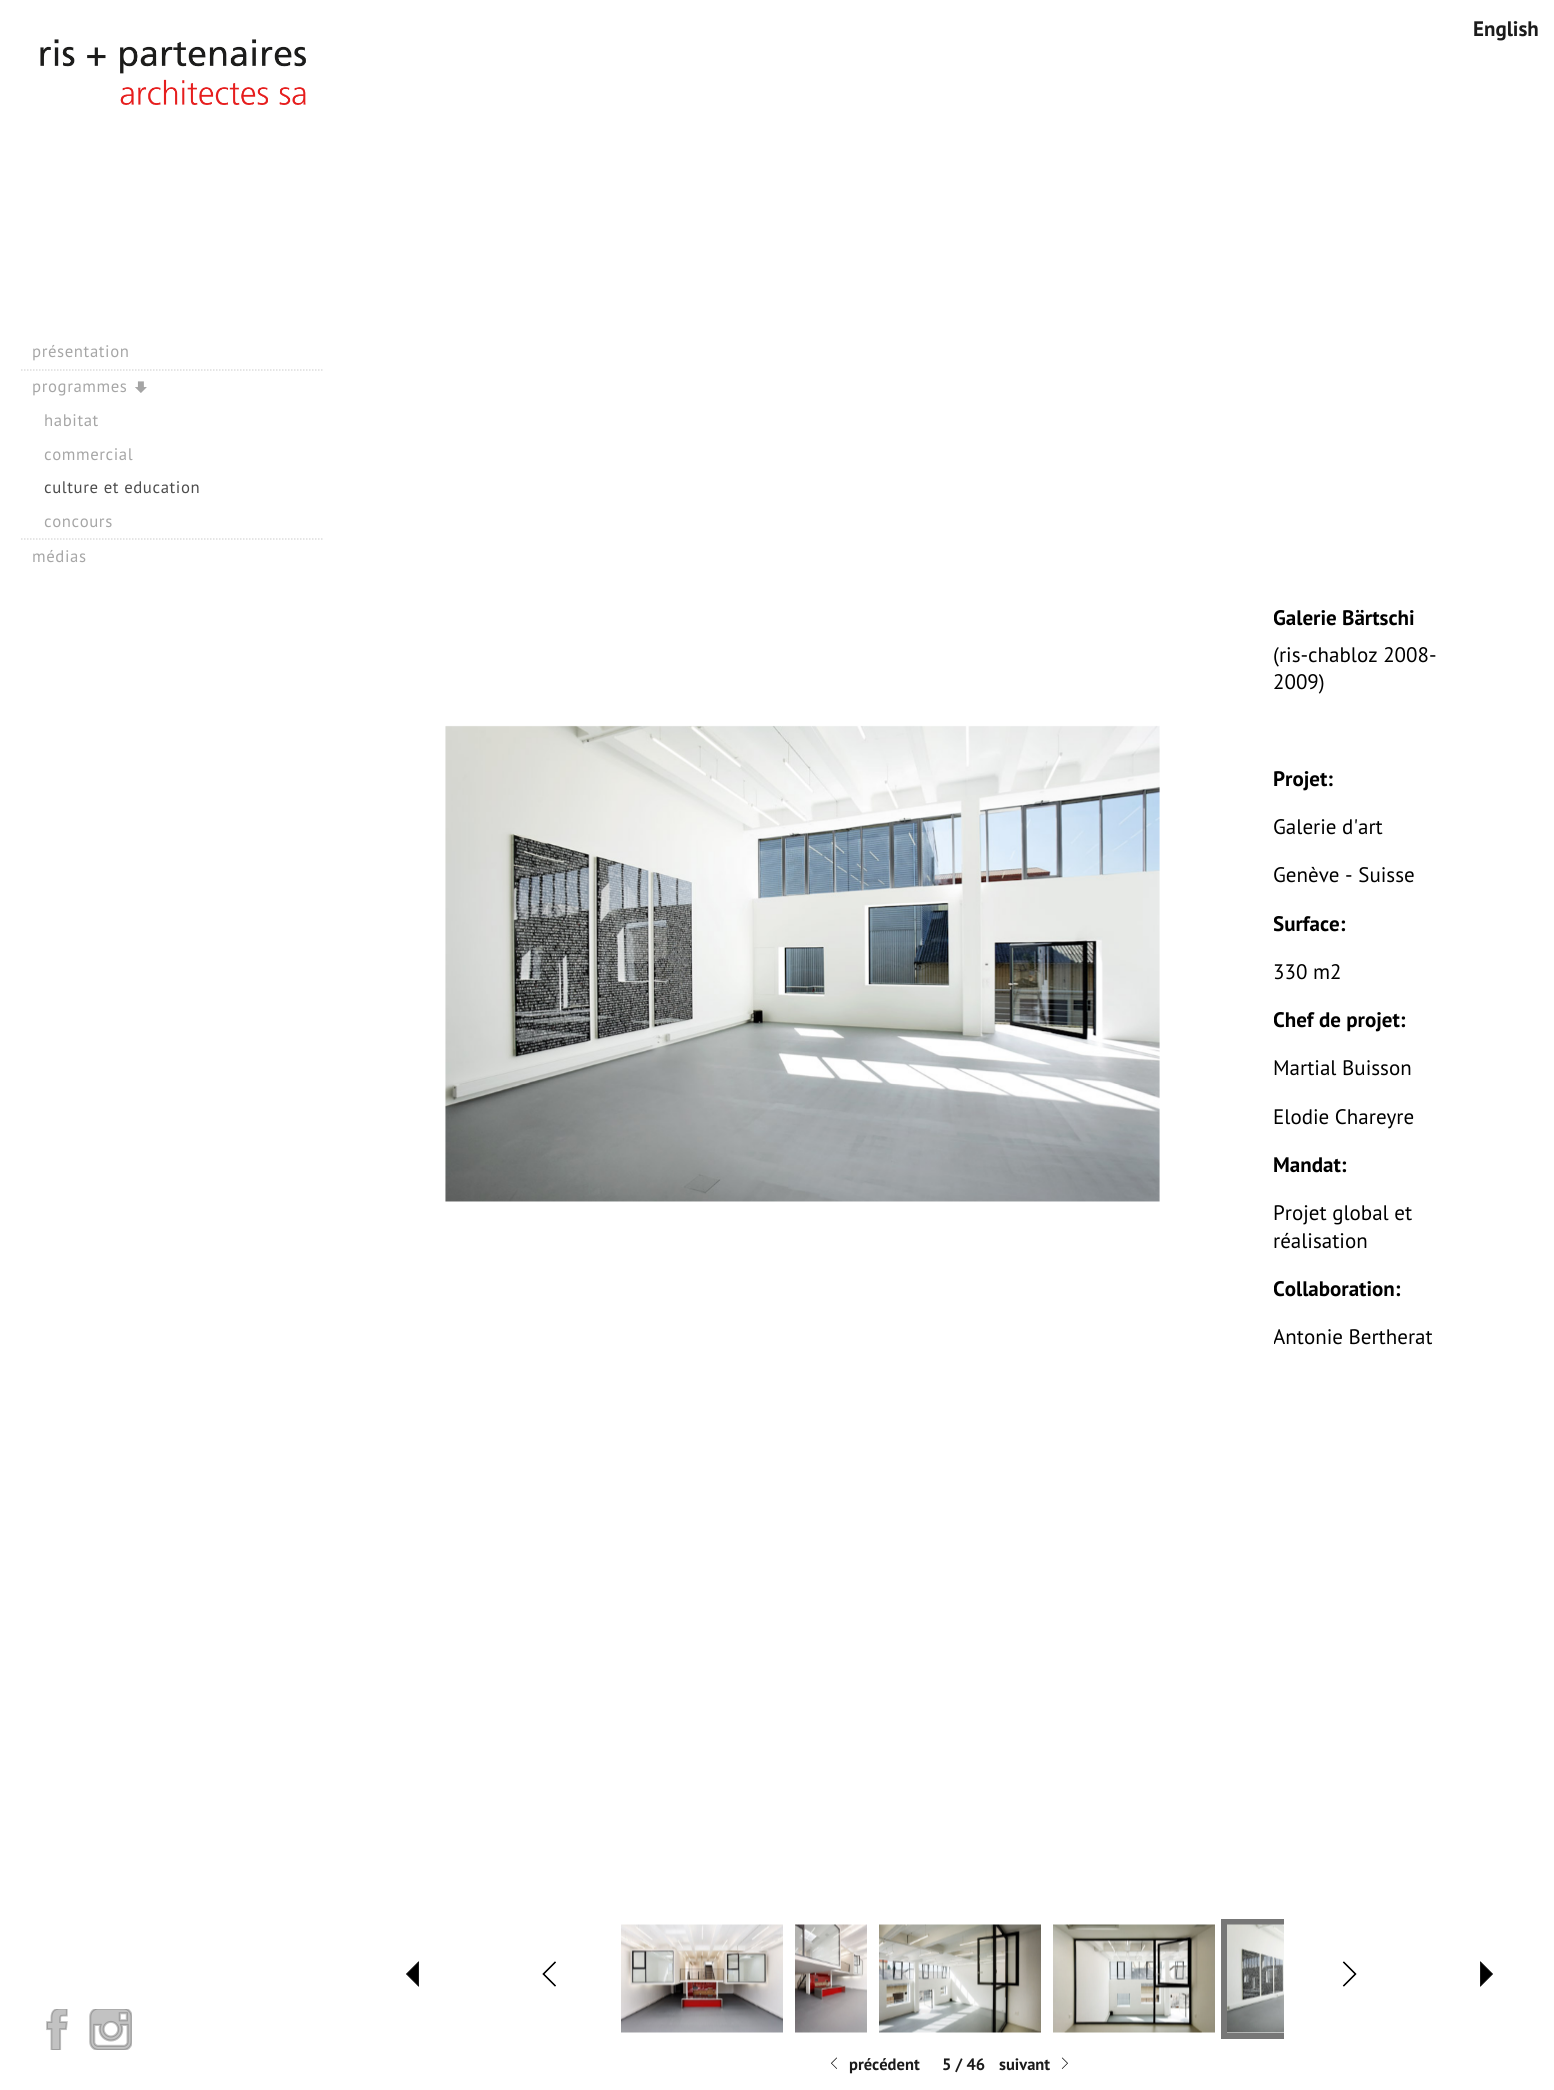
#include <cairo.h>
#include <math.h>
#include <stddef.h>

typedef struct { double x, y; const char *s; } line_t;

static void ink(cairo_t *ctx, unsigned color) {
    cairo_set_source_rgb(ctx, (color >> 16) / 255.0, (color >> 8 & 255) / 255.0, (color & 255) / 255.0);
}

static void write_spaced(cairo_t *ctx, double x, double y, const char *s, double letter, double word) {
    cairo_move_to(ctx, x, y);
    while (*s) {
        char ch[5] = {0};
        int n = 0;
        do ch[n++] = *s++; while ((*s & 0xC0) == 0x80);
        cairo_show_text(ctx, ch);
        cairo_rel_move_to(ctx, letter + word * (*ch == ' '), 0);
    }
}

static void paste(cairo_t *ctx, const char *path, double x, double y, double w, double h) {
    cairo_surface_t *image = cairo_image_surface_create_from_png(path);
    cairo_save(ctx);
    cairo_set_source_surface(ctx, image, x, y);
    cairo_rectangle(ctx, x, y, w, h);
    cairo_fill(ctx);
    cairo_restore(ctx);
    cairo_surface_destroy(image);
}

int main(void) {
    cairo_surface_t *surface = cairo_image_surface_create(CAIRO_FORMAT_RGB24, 1554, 2090);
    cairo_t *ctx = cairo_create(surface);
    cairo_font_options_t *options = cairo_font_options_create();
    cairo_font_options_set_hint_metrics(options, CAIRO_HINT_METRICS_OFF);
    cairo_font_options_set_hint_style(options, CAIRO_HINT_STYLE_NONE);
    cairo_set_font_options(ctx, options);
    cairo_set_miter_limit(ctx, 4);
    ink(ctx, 0xFFFFFF);
    cairo_paint(ctx);
    cairo_select_font_face(ctx, "PT Sans", CAIRO_FONT_SLANT_NORMAL, CAIRO_FONT_WEIGHT_BOLD);
    cairo_set_font_size(ctx, 21);
    ink(ctx, 0x1B1B1B);
    cairo_move_to(ctx, 1473, 36);
    cairo_show_text(ctx, "English");
    paste(ctx, "media/1.png", 40, 39, 266, 66);
    cairo_new_path(ctx);
    cairo_move_to(ctx, 21, 370);
    cairo_line_to(ctx, 324, 370);
    ink(ctx, 0xDDDDDD);
    cairo_set_line_width(ctx, 1.5);
    cairo_set_dash(ctx, (double[]){1.5, 1.5}, 2, 0);
    cairo_stroke(ctx);
    cairo_select_font_face(ctx, "PT Sans", CAIRO_FONT_SLANT_NORMAL, CAIRO_FONT_WEIGHT_NORMAL);
    cairo_set_font_size(ctx, 16.75);
    ink(ctx, 0xA6A6A6);
    write_spaced(ctx, 32, 357, "présentation", 0.6, 0);
    cairo_new_path(ctx);
    cairo_move_to(ctx, 21, 539);
    cairo_line_to(ctx, 324, 539);
    ink(ctx, 0xDDDDDD);
    cairo_stroke(ctx);
    ink(ctx, 0xA6A6A6);
    write_spaced(ctx, 32, 392, "programmes", 0.6, 0);
    paste(ctx, "media/2.png", 135, 381, 12, 12);
    write_spaced(ctx, 44, 426, "habitat", 0.6, 0);
    write_spaced(ctx, 44, 460, "commercial", 0.6, 0);
    ink(ctx, 0x4C4C4C);
    write_spaced(ctx, 44, 493, "culture et education", 0.6, 0);
    ink(ctx, 0xA6A6A6);
    write_spaced(ctx, 44, 527, "concours", 0.6, 0);
    write_spaced(ctx, 32, 562, "médias", 0.6, 0);
    paste(ctx, "media/3.png", 46, 2009, 22, 41);
    paste(ctx, "media/4.png", 89, 2009, 43, 41);
    paste(ctx, "media/5.png", 445, 725, 715, 477);
    cairo_save(ctx);
    cairo_rectangle(ctx, 1274, 602, 199, 769);
    cairo_clip(ctx);
    cairo_select_font_face(ctx, "PT Sans", CAIRO_FONT_SLANT_NORMAL, CAIRO_FONT_WEIGHT_BOLD);
    cairo_set_font_size(ctx, 21);
    ink(ctx, 0x000000);
    cairo_move_to(ctx, 1273, 625);
    cairo_show_text(ctx, "Galerie Bärtschi");
    cairo_restore(ctx);
    cairo_set_font_size(ctx, 21);
    ink(ctx, 0x000000);
    cairo_move_to(ctx, 1273, 662);
    cairo_show_text(ctx, "(ris-chabloz 2008-");
    cairo_move_to(ctx, 1273, 689);
    cairo_show_text(ctx, "2009)");
    cairo_select_font_face(ctx, "PT Sans", CAIRO_FONT_SLANT_NORMAL, CAIRO_FONT_WEIGHT_BOLD);
    cairo_move_to(ctx, 1273, 786);
    cairo_show_text(ctx, "Projet:");
    cairo_select_font_face(ctx, "PT Sans", CAIRO_FONT_SLANT_NORMAL, CAIRO_FONT_WEIGHT_NORMAL);
    cairo_move_to(ctx, 1273, 834);
    cairo_show_text(ctx, "Galerie d'art");
    cairo_move_to(ctx, 1273, 882);
    cairo_show_text(ctx, "Genève - Suisse");
    cairo_save(ctx);
    cairo_rectangle(ctx, 1274, 602, 199, 769);
    cairo_clip(ctx);
    cairo_select_font_face(ctx, "PT Sans", CAIRO_FONT_SLANT_NORMAL, CAIRO_FONT_WEIGHT_BOLD);
    cairo_move_to(ctx, 1273, 931);
    cairo_show_text(ctx, "Surface:");
    cairo_restore(ctx);
    cairo_move_to(ctx, 1273, 979);
    cairo_show_text(ctx, "330 m2");
    cairo_save(ctx);
    cairo_rectangle(ctx, 1274, 602, 199, 769);
    cairo_clip(ctx);
    cairo_select_font_face(ctx, "PT Sans", CAIRO_FONT_SLANT_NORMAL, CAIRO_FONT_WEIGHT_BOLD);
    cairo_move_to(ctx, 1273, 1027);
    cairo_show_text(ctx, "Chef de projet:");
    cairo_restore(ctx);
    cairo_move_to(ctx, 1273, 1075);
    cairo_show_text(ctx, "Martial Buisson");
    cairo_move_to(ctx, 1273, 1124);
    cairo_show_text(ctx, "Elodie Chareyre");
    cairo_select_font_face(ctx, "PT Sans", CAIRO_FONT_SLANT_NORMAL, CAIRO_FONT_WEIGHT_BOLD);
    cairo_move_to(ctx, 1273, 1172);
    cairo_show_text(ctx, "Mandat:");
    cairo_select_font_face(ctx, "PT Sans", CAIRO_FONT_SLANT_NORMAL, CAIRO_FONT_WEIGHT_NORMAL);
    cairo_move_to(ctx, 1273, 1220);
    cairo_show_text(ctx, "Projet global et");
    cairo_move_to(ctx, 1273, 1248);
    cairo_show_text(ctx, "réalisation");
    cairo_save(ctx);
    cairo_rectangle(ctx, 1274, 602, 199, 769);
    cairo_clip(ctx);
    cairo_select_font_face(ctx, "PT Sans", CAIRO_FONT_SLANT_NORMAL, CAIRO_FONT_WEIGHT_BOLD);
    cairo_move_to(ctx, 1273, 1296);
    cairo_show_text(ctx, "Collaboration:");
    cairo_select_font_face(ctx, "PT Sans", CAIRO_FONT_SLANT_NORMAL, CAIRO_FONT_WEIGHT_NORMAL);
    cairo_move_to(ctx, 1273, 1344);
    cairo_show_text(ctx, "Antonie Bertherat");
    cairo_restore(ctx);
    cairo_new_path(ctx);
    cairo_move_to(ctx, 418.5, 1962);
    cairo_line_to(ctx, 406.5, 1974);
    cairo_line_to(ctx, 418.5, 1986);
    cairo_close_path(ctx);
    cairo_fill_preserve(ctx);
    cairo_set_line_width(ctx, 0.8);
    cairo_set_dash(ctx, NULL, 0, 0);
    cairo_stroke(ctx);
    paste(ctx, "media/6.png", 542, 1961, 14, 26);
    paste(ctx, "media/7.png", 621, 1924, 162, 109);
    paste(ctx, "media/8.png", 795, 1924, 72, 109);
    paste(ctx, "media/9.png", 879, 1924, 162, 109);
    paste(ctx, "media/10.png", 1053, 1924, 162, 109);
    cairo_save(ctx);
    cairo_rectangle(ctx, 615, 1919, 669, 120);
    cairo_clip(ctx);
    cairo_rectangle(ctx, 1224, 1922, 168, 114);
    ink(ctx, 0x777777);
    cairo_set_line_width(ctx, 6);
    cairo_stroke(ctx);
    cairo_restore(ctx);
    paste(ctx, "media/11.png", 1227, 1924, 57, 109);
    paste(ctx, "media/12.png", 1342, 1961, 15, 26);
    cairo_new_path(ctx);
    cairo_move_to(ctx, 1480.5, 1962);
    cairo_line_to(ctx, 1492.5, 1974);
    cairo_line_to(ctx, 1480.5, 1986);
    cairo_close_path(ctx);
    cairo_fill_preserve(ctx);
    cairo_stroke(ctx);
    paste(ctx, "media/13.png", 831, 2057, 6, 12);
    cairo_select_font_face(ctx, "PT Sans", CAIRO_FONT_SLANT_NORMAL, CAIRO_FONT_WEIGHT_BOLD);
    cairo_set_font_size(ctx, 16.5);
    ink(ctx, 0x1B1B1B);
    {
        static const line_t items[] = {
            {849, 2070, "précédent"},
            {942, 2070, "5 / 46"},
            {999, 2070, "suivant"},
        };
        for (size_t i = 0; i < sizeof items / sizeof *items; i++) {
            cairo_move_to(ctx, items[i].x, items[i].y);
            cairo_show_text(ctx, items[i].s);
        }
    }
    paste(ctx, "media/14.png", 1061, 2057, 7, 12);
    cairo_surface_write_to_png(surface, "image.png");
    cairo_font_options_destroy(options);
    cairo_destroy(ctx);
    cairo_surface_destroy(surface);
    return 0;
}
